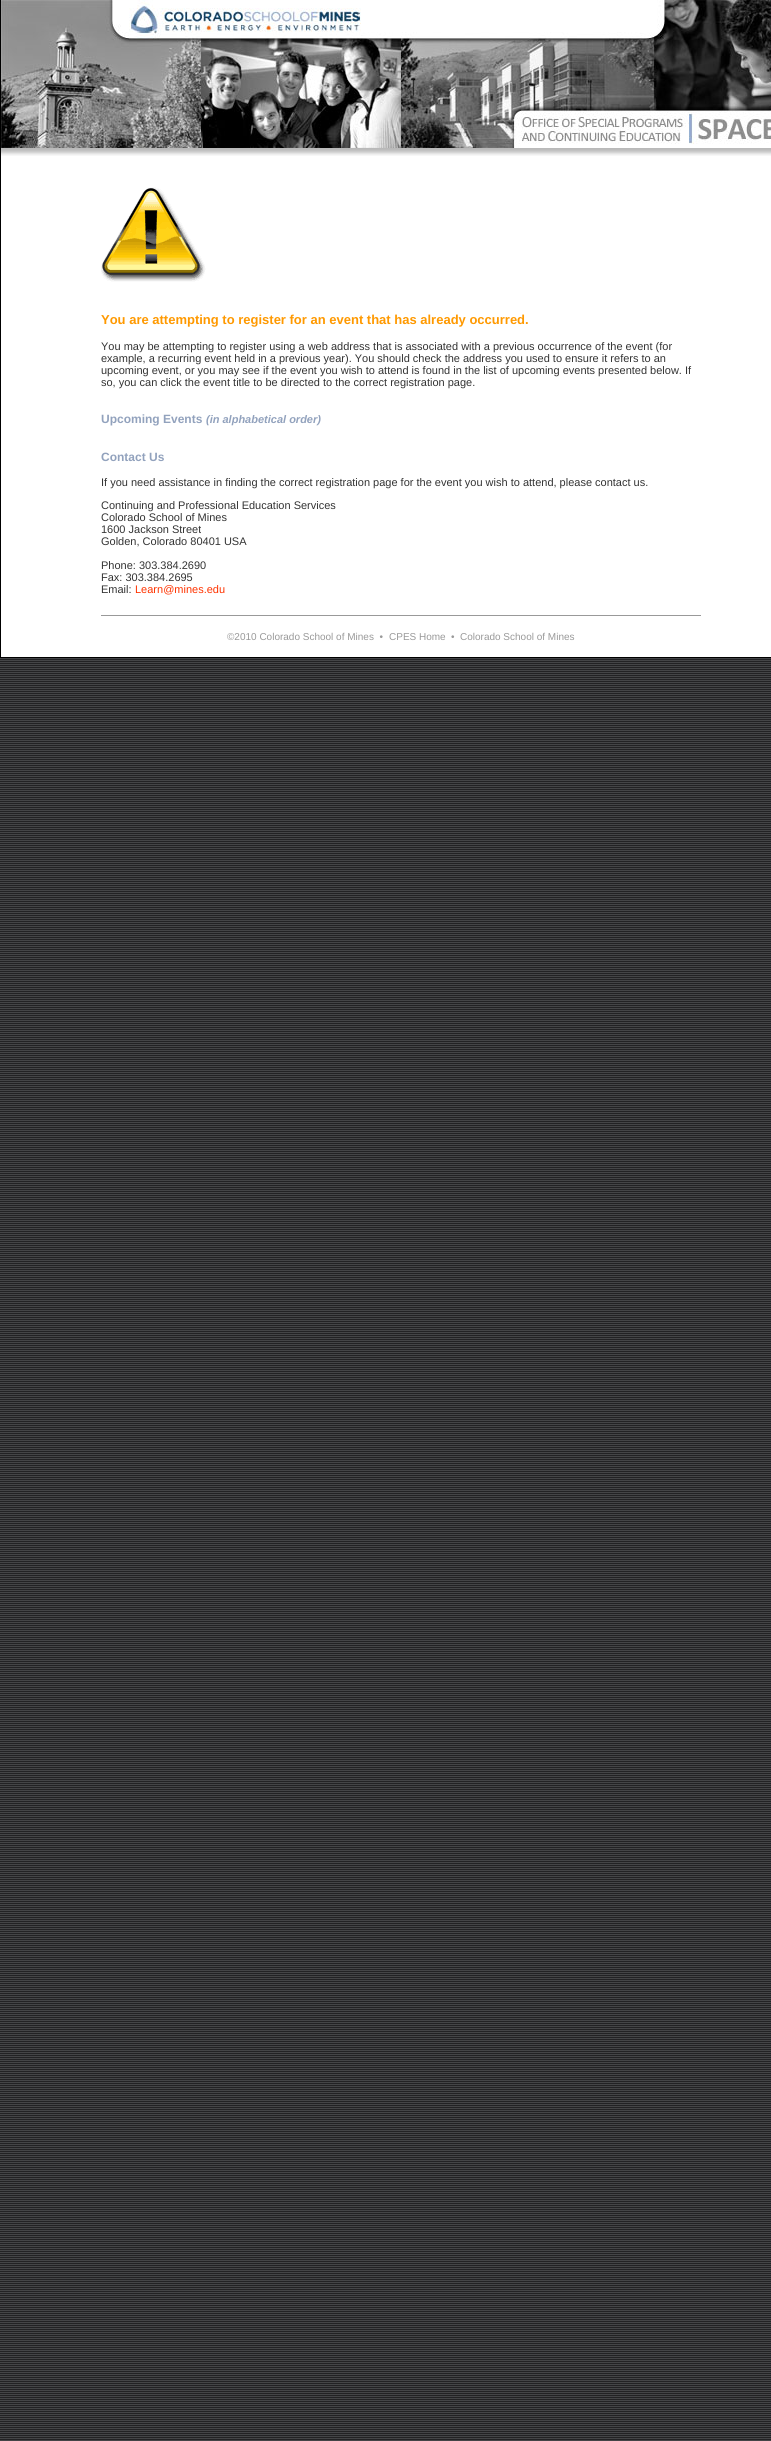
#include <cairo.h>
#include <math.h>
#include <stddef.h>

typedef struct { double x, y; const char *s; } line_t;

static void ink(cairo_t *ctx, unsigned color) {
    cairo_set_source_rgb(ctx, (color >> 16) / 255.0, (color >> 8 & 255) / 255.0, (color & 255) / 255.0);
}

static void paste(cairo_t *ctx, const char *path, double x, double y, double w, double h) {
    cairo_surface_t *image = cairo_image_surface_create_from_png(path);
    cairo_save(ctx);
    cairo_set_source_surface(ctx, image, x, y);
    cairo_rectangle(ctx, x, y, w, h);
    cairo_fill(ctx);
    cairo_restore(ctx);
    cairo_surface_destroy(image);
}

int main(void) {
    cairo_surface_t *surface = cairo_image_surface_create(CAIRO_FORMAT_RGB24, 771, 2441);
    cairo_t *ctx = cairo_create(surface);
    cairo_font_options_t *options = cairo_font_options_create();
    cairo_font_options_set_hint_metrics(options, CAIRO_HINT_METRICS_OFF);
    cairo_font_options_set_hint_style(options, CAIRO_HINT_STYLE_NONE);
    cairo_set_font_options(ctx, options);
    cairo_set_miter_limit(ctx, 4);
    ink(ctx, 0xFFFFFF);
    cairo_paint(ctx);
    paste(ctx, "media/1.png", 0, 658, 771, 1783);
    ink(ctx, 0x000000);
    cairo_rectangle(ctx, 0, 657, 771, 1);
    cairo_fill(ctx);
    cairo_rectangle(ctx, 0, 0, 1, 658);
    cairo_fill(ctx);
    paste(ctx, "media/2.png", 1, 0, 770, 148);
    paste(ctx, "media/3.png", 1, 148, 770, 8);
    paste(ctx, "media/4.png", 101, 187, 105, 95);
    cairo_select_font_face(ctx, "Liberation Sans", CAIRO_FONT_SLANT_NORMAL, CAIRO_FONT_WEIGHT_BOLD);
    cairo_set_font_size(ctx, 13);
    ink(ctx, 0xFF9900);
    cairo_move_to(ctx, 101, 324);
    cairo_show_text(ctx, "You are attempting to register for an event that has already occurred.");
    cairo_select_font_face(ctx, "Liberation Sans", CAIRO_FONT_SLANT_NORMAL, CAIRO_FONT_WEIGHT_NORMAL);
    cairo_set_font_size(ctx, 11);
    ink(ctx, 0x333333);
    {
        static const line_t items[] = {
            {101, 350, "You may be attempting to register using a web address that is associated with a previous occurrence of the event (for"},
            {101, 362, "example, a recurring event held in a previous year). You should check the address you used to ensure it refers to an"},
            {101, 374, "upcoming event, or you may see if the event you wish to attend is found in the list of upcoming events presented below. If"},
            {101, 386, "so, you can click the event title to be directed to the correct registration page."},
        };
        for (size_t i = 0; i < sizeof items / sizeof *items; i++) {
            cairo_move_to(ctx, items[i].x, items[i].y);
            cairo_show_text(ctx, items[i].s);
        }
    }
    cairo_select_font_face(ctx, "Liberation Sans", CAIRO_FONT_SLANT_NORMAL, CAIRO_FONT_WEIGHT_BOLD);
    cairo_set_font_size(ctx, 12);
    ink(ctx, 0x92A2BD);
    cairo_move_to(ctx, 101, 423);
    cairo_show_text(ctx, "Upcoming Events");
    cairo_select_font_face(ctx, "Liberation Sans", CAIRO_FONT_SLANT_ITALIC, CAIRO_FONT_WEIGHT_BOLD);
    cairo_set_font_size(ctx, 11);
    cairo_move_to(ctx, 206, 423);
    cairo_show_text(ctx, "(in alphabetical order)");
    cairo_select_font_face(ctx, "Liberation Sans", CAIRO_FONT_SLANT_NORMAL, CAIRO_FONT_WEIGHT_BOLD);
    cairo_set_font_size(ctx, 12);
    cairo_move_to(ctx, 101, 461);
    cairo_show_text(ctx, "Contact Us");
    cairo_select_font_face(ctx, "Liberation Sans", CAIRO_FONT_SLANT_NORMAL, CAIRO_FONT_WEIGHT_NORMAL);
    cairo_set_font_size(ctx, 11);
    ink(ctx, 0x333333);
    {
        static const line_t items[] = {
            {101, 486, "If you need assistance in finding the correct registration page for the event you wish to attend, please contact us."},
            {101, 509, "Continuing and Professional Education Services"},
            {101, 521, "Colorado School of Mines"},
            {101, 533, "1600 Jackson Street"},
            {101, 545, "Golden, Colorado 80401 USA"},
            {101, 569, "Phone: 303.384.2690"},
            {101, 581, "Fax: 303.384.2695"},
            {101, 593, "Email:"},
        };
        for (size_t i = 0; i < sizeof items / sizeof *items; i++) {
            cairo_move_to(ctx, items[i].x, items[i].y);
            cairo_show_text(ctx, items[i].s);
        }
    }
    ink(ctx, 0xFF3300);
    cairo_move_to(ctx, 135, 593);
    cairo_show_text(ctx, "Learn@mines.edu");
    ink(ctx, 0x999999);
    cairo_rectangle(ctx, 101, 615, 600, 1);
    cairo_fill(ctx);
    cairo_set_font_size(ctx, 10);
    {
        static const line_t items[] = {
            {227, 640, "©2010 Colorado School of Mines  •"},
            {389, 640, "CPES Home"},
            {451, 640, "•"},
            {460, 640, "Colorado School of Mines"},
        };
        for (size_t i = 0; i < sizeof items / sizeof *items; i++) {
            cairo_move_to(ctx, items[i].x, items[i].y);
            cairo_show_text(ctx, items[i].s);
        }
    }
    cairo_surface_write_to_png(surface, "image.png");
    cairo_font_options_destroy(options);
    cairo_destroy(ctx);
    cairo_surface_destroy(surface);
    return 0;
}
